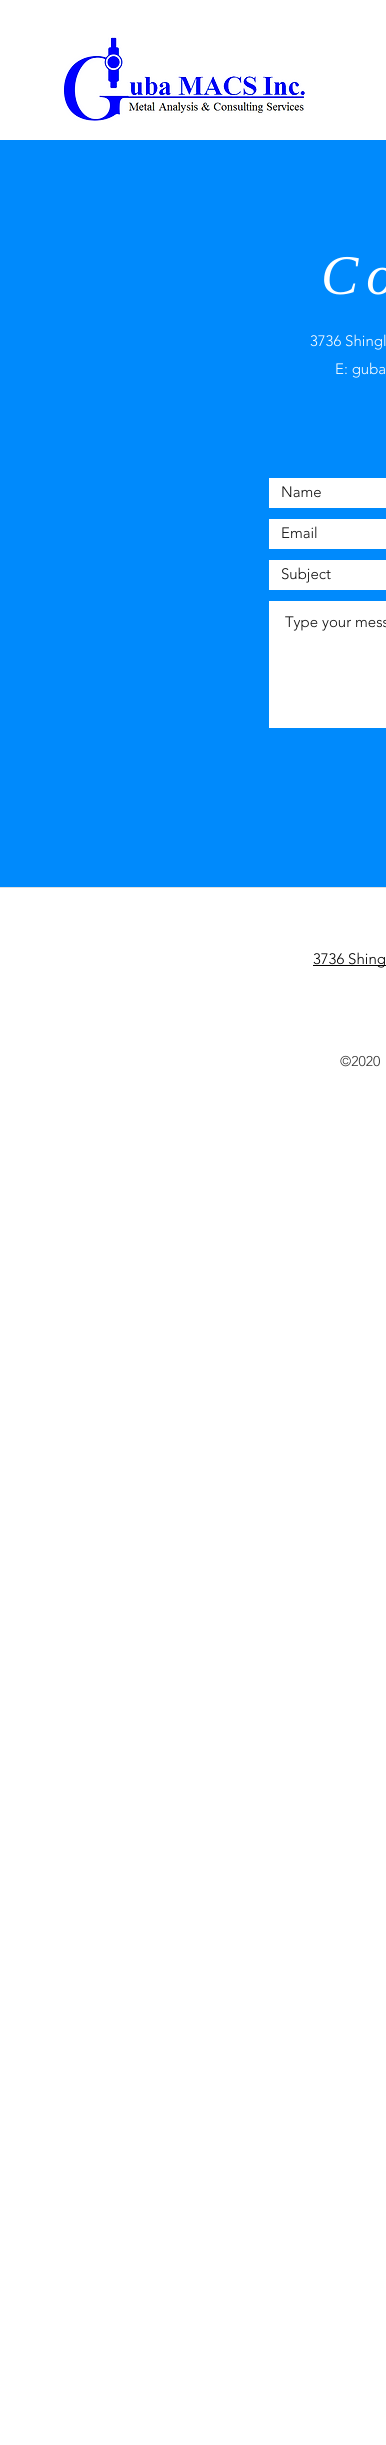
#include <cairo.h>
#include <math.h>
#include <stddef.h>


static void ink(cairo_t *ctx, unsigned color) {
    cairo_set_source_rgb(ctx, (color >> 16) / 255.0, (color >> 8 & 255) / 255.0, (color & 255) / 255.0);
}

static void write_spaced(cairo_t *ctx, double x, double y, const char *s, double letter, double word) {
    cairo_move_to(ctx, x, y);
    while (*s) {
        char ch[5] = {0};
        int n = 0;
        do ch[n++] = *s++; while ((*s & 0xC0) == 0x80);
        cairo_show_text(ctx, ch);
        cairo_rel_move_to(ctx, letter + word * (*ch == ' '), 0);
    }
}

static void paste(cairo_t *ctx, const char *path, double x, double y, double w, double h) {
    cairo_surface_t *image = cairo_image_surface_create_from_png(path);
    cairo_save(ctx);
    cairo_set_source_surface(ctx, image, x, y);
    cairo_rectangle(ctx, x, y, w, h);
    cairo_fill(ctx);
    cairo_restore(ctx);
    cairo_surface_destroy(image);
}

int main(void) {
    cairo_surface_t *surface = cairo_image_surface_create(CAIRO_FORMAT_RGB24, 386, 2445);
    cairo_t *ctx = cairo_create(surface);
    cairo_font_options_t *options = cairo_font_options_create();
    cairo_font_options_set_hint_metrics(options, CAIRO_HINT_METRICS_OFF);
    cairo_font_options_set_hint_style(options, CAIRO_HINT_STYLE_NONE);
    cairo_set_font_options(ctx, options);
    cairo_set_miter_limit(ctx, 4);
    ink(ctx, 0xFFFFFF);
    cairo_paint(ctx);
    paste(ctx, "media/1.png", 64, 37, 241, 84);
    ink(ctx, 0x008AFC);
    cairo_rectangle(ctx, 0, 140, 386, 747);
    cairo_fill(ctx);
    cairo_select_font_face(ctx, "Liberation Serif", CAIRO_FONT_SLANT_ITALIC, CAIRO_FONT_WEIGHT_NORMAL);
    cairo_set_font_size(ctx, 56);
    ink(ctx, 0xFFFFFF);
    write_spaced(ctx, 321, 294, "Co", 8, 0);
    cairo_select_font_face(ctx, "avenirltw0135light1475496 Light", CAIRO_FONT_SLANT_NORMAL, CAIRO_FONT_WEIGHT_NORMAL);
    cairo_set_font_size(ctx, 15);
    cairo_move_to(ctx, 310, 346);
    cairo_show_text(ctx, "3736 Shingl");
    cairo_move_to(ctx, 335, 374);
    cairo_show_text(ctx, "E: guba");
    cairo_rectangle(ctx, 269, 478, 117, 30);
    cairo_fill(ctx);
    ink(ctx, 0x0F0F0F);
    cairo_move_to(ctx, 281, 497);
    cairo_show_text(ctx, "Name");
    ink(ctx, 0xFFFFFF);
    cairo_rectangle(ctx, 269, 519, 117, 30);
    cairo_fill(ctx);
    ink(ctx, 0x0F0F0F);
    cairo_move_to(ctx, 281, 538);
    cairo_show_text(ctx, "Email");
    ink(ctx, 0xFFFFFF);
    cairo_rectangle(ctx, 269, 560, 117, 30);
    cairo_fill(ctx);
    ink(ctx, 0x0F0F0F);
    cairo_move_to(ctx, 281, 579);
    cairo_show_text(ctx, "Subject");
    ink(ctx, 0xFFFFFF);
    cairo_rectangle(ctx, 269, 601, 117, 127);
    cairo_fill(ctx);
    ink(ctx, 0x0F0F0F);
    cairo_move_to(ctx, 285, 627);
    cairo_show_text(ctx, "Type your mess");
    ink(ctx, 0xE0E0E0);
    cairo_rectangle(ctx, 0, 887, 386, 1);
    cairo_fill(ctx);
    ink(ctx, 0x000000);
    cairo_rectangle(ctx, 313, 965, 73, 1);
    cairo_fill(ctx);
    cairo_move_to(ctx, 313, 964);
    cairo_show_text(ctx, "3736 Shing");
    cairo_set_font_size(ctx, 14);
    ink(ctx, 0x303030);
    cairo_move_to(ctx, 340, 1066);
    cairo_show_text(ctx, "©2020");
    cairo_surface_write_to_png(surface, "image.png");
    cairo_font_options_destroy(options);
    cairo_destroy(ctx);
    cairo_surface_destroy(surface);
    return 0;
}
